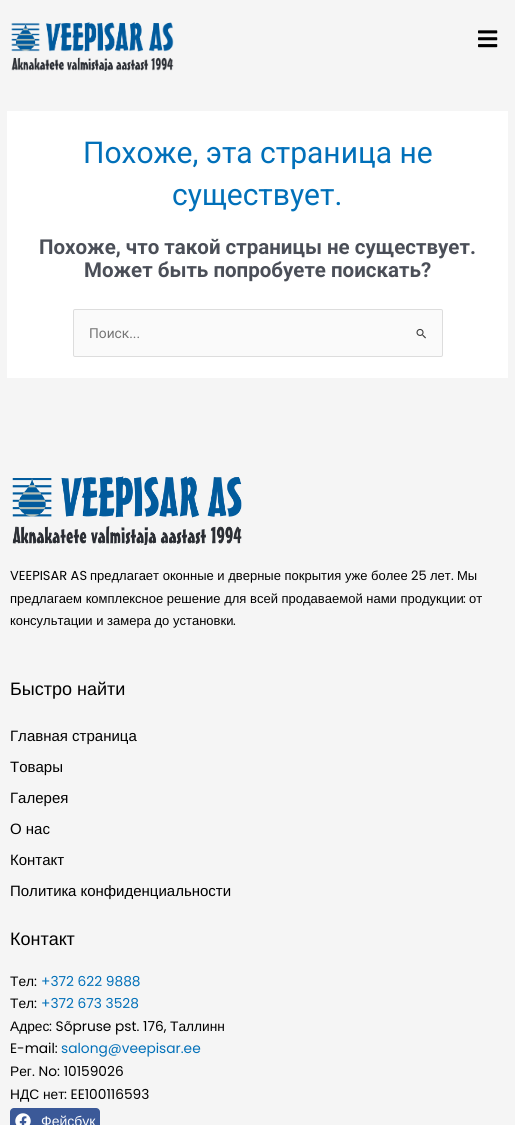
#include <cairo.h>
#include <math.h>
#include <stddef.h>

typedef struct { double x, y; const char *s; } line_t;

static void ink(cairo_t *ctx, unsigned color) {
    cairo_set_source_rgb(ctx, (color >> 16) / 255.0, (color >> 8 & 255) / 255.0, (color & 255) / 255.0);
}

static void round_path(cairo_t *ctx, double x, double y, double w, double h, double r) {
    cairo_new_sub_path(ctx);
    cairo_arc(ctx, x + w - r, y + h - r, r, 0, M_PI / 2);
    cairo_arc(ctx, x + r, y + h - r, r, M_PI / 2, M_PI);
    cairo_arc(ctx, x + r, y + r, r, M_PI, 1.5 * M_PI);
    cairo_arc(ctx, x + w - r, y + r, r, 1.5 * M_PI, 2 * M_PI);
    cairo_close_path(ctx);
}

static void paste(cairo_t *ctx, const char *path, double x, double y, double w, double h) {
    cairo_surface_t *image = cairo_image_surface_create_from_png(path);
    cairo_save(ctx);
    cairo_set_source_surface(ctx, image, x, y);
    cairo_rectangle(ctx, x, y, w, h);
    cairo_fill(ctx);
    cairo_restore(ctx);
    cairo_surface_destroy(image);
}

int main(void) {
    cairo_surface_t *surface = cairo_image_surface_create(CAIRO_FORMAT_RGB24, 515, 1125);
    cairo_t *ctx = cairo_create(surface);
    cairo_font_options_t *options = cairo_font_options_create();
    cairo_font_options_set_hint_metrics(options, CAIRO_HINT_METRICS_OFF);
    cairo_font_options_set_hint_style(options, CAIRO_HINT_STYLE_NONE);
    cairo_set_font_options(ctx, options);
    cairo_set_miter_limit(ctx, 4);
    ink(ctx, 0xF5F5F5);
    cairo_paint(ctx);
    paste(ctx, "media/1.png", 11, 22, 163, 49);
    paste(ctx, "media/2.png", 478, 30, 20, 18);
    ink(ctx, 0xFFFFFF);
    cairo_rectangle(ctx, 7, 111, 501, 267);
    cairo_fill(ctx);
    cairo_select_font_face(ctx, "Roboto", CAIRO_FONT_SLANT_NORMAL, CAIRO_FONT_WEIGHT_NORMAL);
    cairo_set_font_size(ctx, 30);
    ink(ctx, 0x0170B9);
    cairo_move_to(ctx, 83, 163);
    cairo_show_text(ctx, "Похоже, эта страница не");
    cairo_move_to(ctx, 172, 205);
    cairo_show_text(ctx, "существует.");
    cairo_select_font_face(ctx, "Roboto", CAIRO_FONT_SLANT_NORMAL, CAIRO_FONT_WEIGHT_BOLD);
    cairo_set_font_size(ctx, 20.5);
    ink(ctx, 0x4B4F58);
    cairo_move_to(ctx, 39, 254);
    cairo_show_text(ctx, "Похоже, что такой страницы не существует.");
    cairo_move_to(ctx, 84, 277);
    cairo_show_text(ctx, "Может быть попробуете поискать?");
    ink(ctx, 0xFAFAFA);
    round_path(ctx, 73.5, 309.5, 369, 47, 1.5);
    cairo_fill_preserve(ctx);
    ink(ctx, 0xDDDDDD);
    cairo_set_line_width(ctx, 1);
    cairo_stroke(ctx);
    cairo_select_font_face(ctx, "Roboto", CAIRO_FONT_SLANT_NORMAL, CAIRO_FONT_WEIGHT_NORMAL);
    cairo_set_font_size(ctx, 13.75);
    ink(ctx, 0x757575);
    cairo_move_to(ctx, 89, 338);
    cairo_show_text(ctx, "Поиск...");
    paste(ctx, "media/3.png", 416, 328, 10, 11);
    paste(ctx, "media/4.png", 12, 476, 230, 69);
    cairo_select_font_face(ctx, "Poppins", CAIRO_FONT_SLANT_NORMAL, CAIRO_FONT_WEIGHT_NORMAL);
    cairo_set_font_size(ctx, 13);
    ink(ctx, 0x000000);
    cairo_move_to(ctx, 10, 580);
    cairo_show_text(ctx, "VEEPISAR AS");
    cairo_select_font_face(ctx, "Liberation Sans", CAIRO_FONT_SLANT_NORMAL, CAIRO_FONT_WEIGHT_NORMAL);
    cairo_move_to(ctx, 90, 580);
    cairo_show_text(ctx, "предлагает оконные и дверные покрытия уже более");
    cairo_select_font_face(ctx, "Poppins", CAIRO_FONT_SLANT_NORMAL, CAIRO_FONT_WEIGHT_NORMAL);
    cairo_move_to(ctx, 411, 580);
    cairo_show_text(ctx, "25");
    cairo_select_font_face(ctx, "Liberation Sans", CAIRO_FONT_SLANT_NORMAL, CAIRO_FONT_WEIGHT_NORMAL);
    cairo_move_to(ctx, 430, 580);
    cairo_show_text(ctx, "лет");
    cairo_select_font_face(ctx, "Poppins", CAIRO_FONT_SLANT_NORMAL, CAIRO_FONT_WEIGHT_NORMAL);
    cairo_move_to(ctx, 451, 580);
    cairo_show_text(ctx, ".");
    cairo_select_font_face(ctx, "Liberation Sans", CAIRO_FONT_SLANT_NORMAL, CAIRO_FONT_WEIGHT_NORMAL);
    cairo_move_to(ctx, 457, 580);
    cairo_show_text(ctx, "Мы");
    cairo_move_to(ctx, 10, 603);
    cairo_show_text(ctx, "предлагаем комплексное решение для всей продаваемой нами продукции");
    cairo_select_font_face(ctx, "Poppins", CAIRO_FONT_SLANT_NORMAL, CAIRO_FONT_WEIGHT_NORMAL);
    cairo_move_to(ctx, 463, 603);
    cairo_show_text(ctx, ":");
    cairo_select_font_face(ctx, "Liberation Sans", CAIRO_FONT_SLANT_NORMAL, CAIRO_FONT_WEIGHT_NORMAL);
    cairo_move_to(ctx, 469, 603);
    cairo_show_text(ctx, "от");
    cairo_move_to(ctx, 10, 625);
    cairo_show_text(ctx, "консультации и замера до установки");
    cairo_select_font_face(ctx, "Poppins", CAIRO_FONT_SLANT_NORMAL, CAIRO_FONT_WEIGHT_NORMAL);
    cairo_move_to(ctx, 233, 625);
    cairo_show_text(ctx, ".");
    cairo_select_font_face(ctx, "Liberation Sans", CAIRO_FONT_SLANT_NORMAL, CAIRO_FONT_WEIGHT_NORMAL);
    cairo_set_font_size(ctx, 18);
    cairo_move_to(ctx, 10, 695);
    cairo_show_text(ctx, "Быстро найти");
    cairo_set_font_size(ctx, 15);
    {
        static const line_t items[] = {
            {10, 741, "Главная страница"},
            {10, 772, "Товары"},
            {10, 803, "Галерея"},
            {10, 834, "О нас"},
            {10, 865, "Контакт"},
            {10, 896, "Политика конфиденциальности"},
        };
        for (size_t i = 0; i < sizeof items / sizeof *items; i++) {
            cairo_move_to(ctx, items[i].x, items[i].y);
            cairo_show_text(ctx, items[i].s);
        }
    }
    cairo_set_font_size(ctx, 18);
    cairo_move_to(ctx, 10, 945);
    cairo_show_text(ctx, "Контакт");
    cairo_set_font_size(ctx, 13.75);
    cairo_move_to(ctx, 10, 986);
    cairo_show_text(ctx, "Тел");
    cairo_select_font_face(ctx, "Poppins", CAIRO_FONT_SLANT_NORMAL, CAIRO_FONT_WEIGHT_NORMAL);
    cairo_move_to(ctx, 34, 986);
    cairo_show_text(ctx, ":");
    ink(ctx, 0x0170B9);
    cairo_move_to(ctx, 41, 986);
    cairo_show_text(ctx, "+372 622 9888");
    cairo_select_font_face(ctx, "Liberation Sans", CAIRO_FONT_SLANT_NORMAL, CAIRO_FONT_WEIGHT_NORMAL);
    ink(ctx, 0x000000);
    cairo_move_to(ctx, 10, 1008);
    cairo_show_text(ctx, "Тел");
    cairo_select_font_face(ctx, "Poppins", CAIRO_FONT_SLANT_NORMAL, CAIRO_FONT_WEIGHT_NORMAL);
    cairo_move_to(ctx, 34, 1008);
    cairo_show_text(ctx, ":");
    ink(ctx, 0x0170B9);
    cairo_move_to(ctx, 41, 1008);
    cairo_show_text(ctx, "+372 673 3528");
    cairo_select_font_face(ctx, "Liberation Sans", CAIRO_FONT_SLANT_NORMAL, CAIRO_FONT_WEIGHT_NORMAL);
    ink(ctx, 0x000000);
    cairo_move_to(ctx, 10, 1031);
    cairo_show_text(ctx, "Адрес");
    cairo_select_font_face(ctx, "Poppins", CAIRO_FONT_SLANT_NORMAL, CAIRO_FONT_WEIGHT_NORMAL);
    cairo_move_to(ctx, 49, 1031);
    cairo_show_text(ctx, ": Sõpruse pst. 176,");
    cairo_select_font_face(ctx, "Liberation Sans", CAIRO_FONT_SLANT_NORMAL, CAIRO_FONT_WEIGHT_NORMAL);
    cairo_move_to(ctx, 170, 1031);
    cairo_show_text(ctx, "Таллинн");
    cairo_select_font_face(ctx, "Poppins", CAIRO_FONT_SLANT_NORMAL, CAIRO_FONT_WEIGHT_NORMAL);
    cairo_move_to(ctx, 10, 1053);
    cairo_show_text(ctx, "E-mail:");
    ink(ctx, 0x0170B9);
    cairo_move_to(ctx, 61, 1053);
    cairo_show_text(ctx, "salong@veepisar.ee");
    cairo_select_font_face(ctx, "Liberation Sans", CAIRO_FONT_SLANT_NORMAL, CAIRO_FONT_WEIGHT_NORMAL);
    ink(ctx, 0x000000);
    cairo_move_to(ctx, 10, 1076);
    cairo_show_text(ctx, "Рег");
    cairo_select_font_face(ctx, "Poppins", CAIRO_FONT_SLANT_NORMAL, CAIRO_FONT_WEIGHT_NORMAL);
    cairo_move_to(ctx, 32, 1076);
    cairo_show_text(ctx, ". No: 10159026");
    cairo_select_font_face(ctx, "Liberation Sans", CAIRO_FONT_SLANT_NORMAL, CAIRO_FONT_WEIGHT_NORMAL);
    cairo_move_to(ctx, 10, 1099);
    cairo_show_text(ctx, "НДС нет");
    cairo_select_font_face(ctx, "Poppins", CAIRO_FONT_SLANT_NORMAL, CAIRO_FONT_WEIGHT_NORMAL);
    cairo_move_to(ctx, 64, 1099);
    cairo_show_text(ctx, ": EE100116593");
    ink(ctx, 0x3B5998);
    round_path(ctx, 10, 1108, 90, 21, 4);
    cairo_fill(ctx);
    paste(ctx, "media/5.png", 15, 1113, 16, 12);
    cairo_select_font_face(ctx, "Liberation Sans", CAIRO_FONT_SLANT_NORMAL, CAIRO_FONT_WEIGHT_NORMAL);
    cairo_set_font_size(ctx, 14);
    ink(ctx, 0xFFFFFF);
    cairo_move_to(ctx, 41, 1126);
    cairo_show_text(ctx, "Фейсбук");
    cairo_surface_write_to_png(surface, "image.png");
    cairo_font_options_destroy(options);
    cairo_destroy(ctx);
    cairo_surface_destroy(surface);
    return 0;
}
